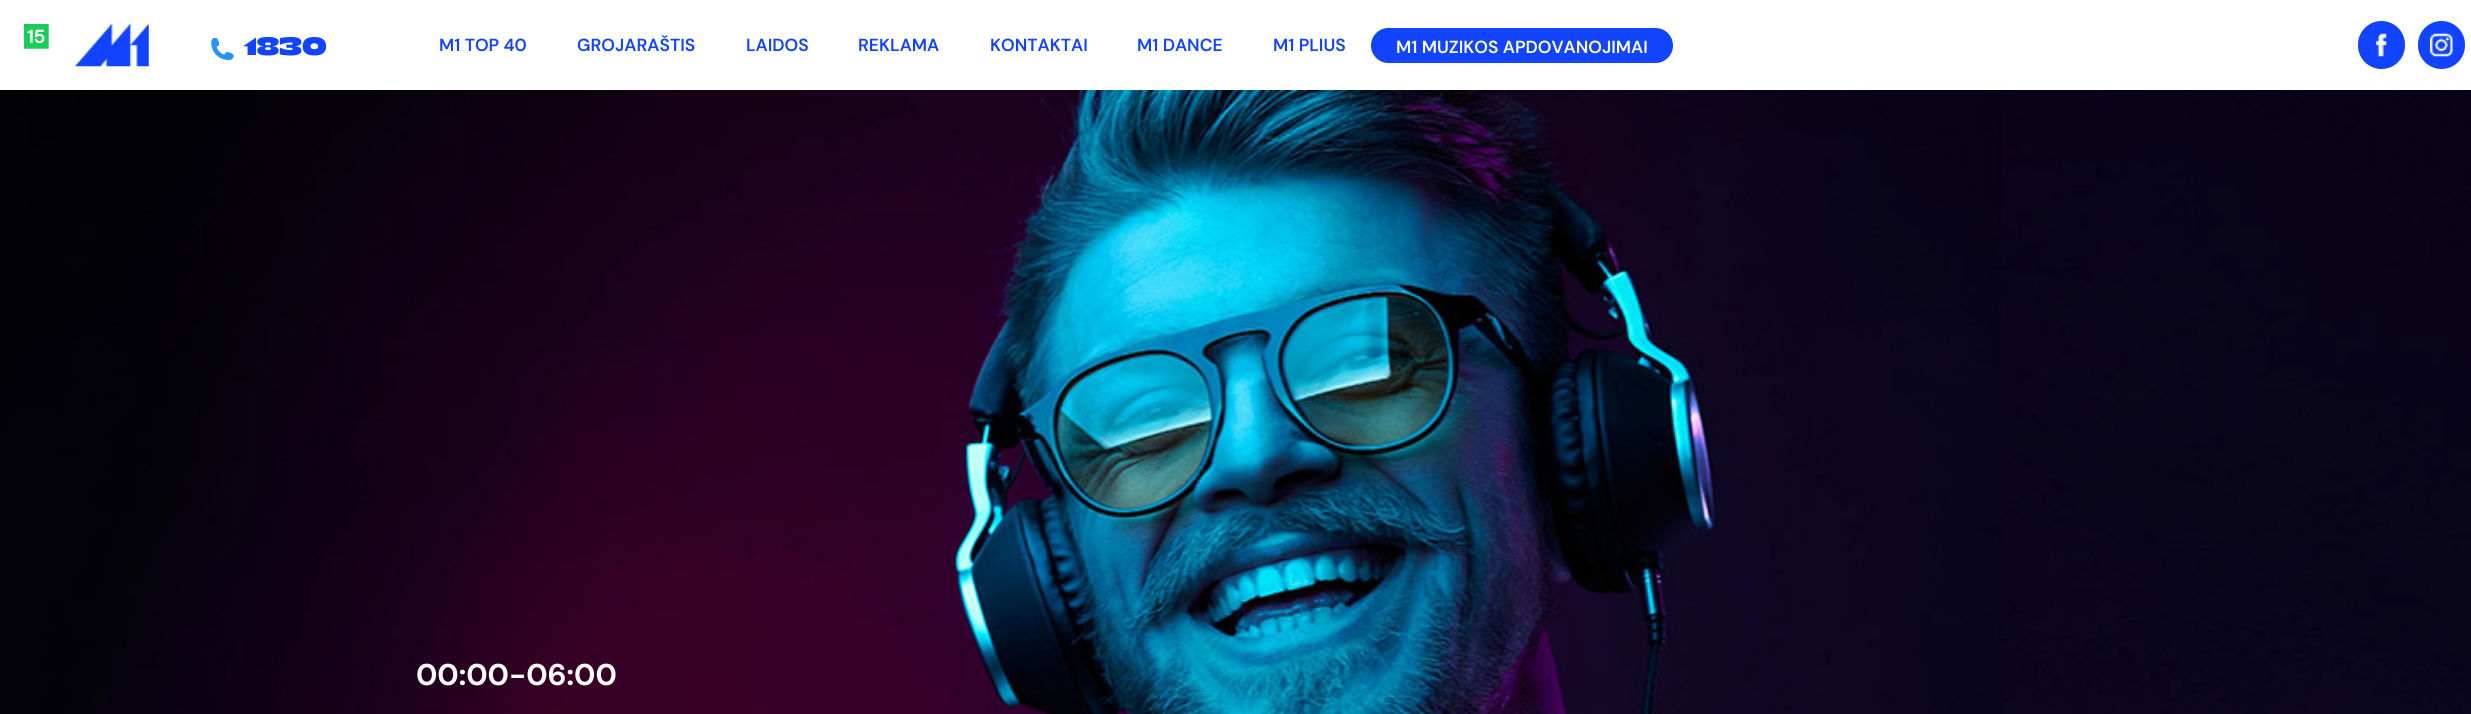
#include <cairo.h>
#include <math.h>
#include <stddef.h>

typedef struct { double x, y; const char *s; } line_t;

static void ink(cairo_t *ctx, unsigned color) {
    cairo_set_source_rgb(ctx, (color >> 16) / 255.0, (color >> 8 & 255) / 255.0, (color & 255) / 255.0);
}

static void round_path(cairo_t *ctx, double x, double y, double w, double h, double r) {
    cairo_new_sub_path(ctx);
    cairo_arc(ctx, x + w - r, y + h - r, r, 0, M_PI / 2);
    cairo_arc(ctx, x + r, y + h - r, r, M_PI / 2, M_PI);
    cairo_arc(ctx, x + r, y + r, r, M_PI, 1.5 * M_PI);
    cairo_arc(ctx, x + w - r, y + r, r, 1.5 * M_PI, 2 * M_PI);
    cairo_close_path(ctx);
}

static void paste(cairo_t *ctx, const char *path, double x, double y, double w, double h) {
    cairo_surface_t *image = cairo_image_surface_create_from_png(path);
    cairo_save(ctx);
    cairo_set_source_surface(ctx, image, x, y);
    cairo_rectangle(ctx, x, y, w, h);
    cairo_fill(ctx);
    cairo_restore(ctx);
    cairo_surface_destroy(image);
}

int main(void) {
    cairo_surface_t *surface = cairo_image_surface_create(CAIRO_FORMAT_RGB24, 2471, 714);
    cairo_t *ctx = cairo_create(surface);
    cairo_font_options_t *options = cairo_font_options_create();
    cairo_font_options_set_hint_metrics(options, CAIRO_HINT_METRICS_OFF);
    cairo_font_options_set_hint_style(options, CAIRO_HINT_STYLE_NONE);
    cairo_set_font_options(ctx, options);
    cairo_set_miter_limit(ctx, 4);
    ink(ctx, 0xFFFFFF);
    cairo_paint(ctx);
    paste(ctx, "media/1.png", 24, 24, 25, 25);
    paste(ctx, "media/2.png", 75, 23, 74, 44);
    paste(ctx, "media/3.png", 211, 38, 23, 22);
    cairo_select_font_face(ctx, "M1", CAIRO_FONT_SLANT_NORMAL, CAIRO_FONT_WEIGHT_NORMAL);
    cairo_set_font_size(ctx, 25);
    ink(ctx, 0x1244FF);
    cairo_move_to(ctx, 243, 55);
    cairo_show_text(ctx, "1830");
    cairo_select_font_face(ctx, "DM Sans SemiBold", CAIRO_FONT_SLANT_NORMAL, CAIRO_FONT_WEIGHT_NORMAL);
    cairo_set_font_size(ctx, 17.5);
    {
        static const line_t items[] = {
            {439, 51, "M1 TOP 40"},
            {577, 51, "GROJARAŠTIS"},
            {746, 51, "LAIDOS"},
            {858, 51, "REKLAMA"},
            {990, 51, "KONTAKTAI"},
            {1137, 51, "M1 DANCE"},
            {1273, 51, "M1 PLIUS"},
        };
        for (size_t i = 0; i < sizeof items / sizeof *items; i++) {
            cairo_move_to(ctx, items[i].x, items[i].y);
            cairo_show_text(ctx, items[i].s);
        }
    }
    round_path(ctx, 1371, 28, 302, 35, 17.5);
    cairo_fill(ctx);
    ink(ctx, 0xFFFFFF);
    cairo_move_to(ctx, 1396, 53);
    cairo_show_text(ctx, "M1 MUZIKOS APDOVANOJIMAI");
    ink(ctx, 0x1244FF);
    round_path(ctx, 2358, 21, 47, 48, 23.5);
    cairo_fill(ctx);
    paste(ctx, "media/4.png", 2376, 33, 11, 24);
    round_path(ctx, 2418, 21, 47, 48, 23.5);
    cairo_fill(ctx);
    paste(ctx, "media/5.png", 2430, 33, 23, 24);
    paste(ctx, "media/6.png", 0, 90, 2471, 624);
    cairo_select_font_face(ctx, "DM Sans", CAIRO_FONT_SLANT_NORMAL, CAIRO_FONT_WEIGHT_BOLD);
    cairo_set_font_size(ctx, 30);
    ink(ctx, 0xFFFFFF);
    cairo_move_to(ctx, 416, 685);
    cairo_show_text(ctx, "00:00-06:00");
    cairo_surface_write_to_png(surface, "image.png");
    cairo_font_options_destroy(options);
    cairo_destroy(ctx);
    cairo_surface_destroy(surface);
    return 0;
}
